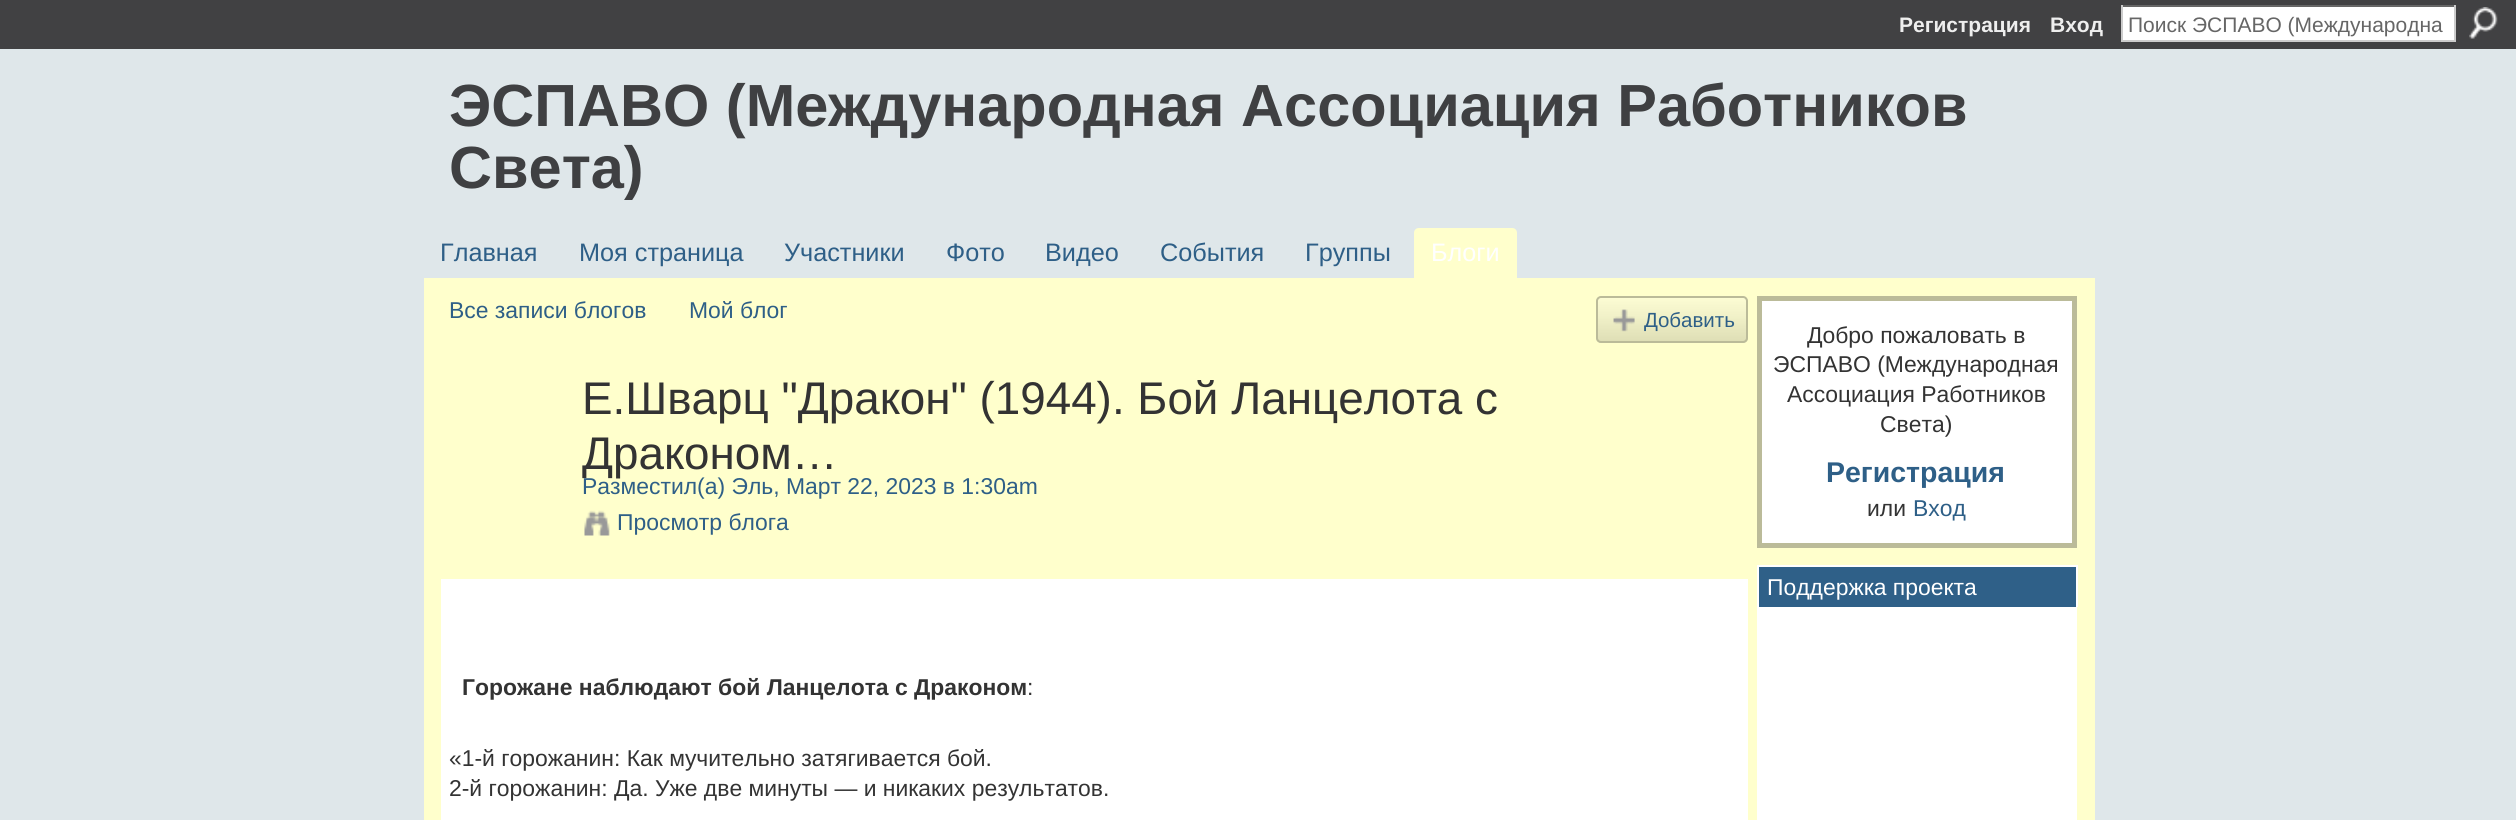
#include <cairo.h>
#include <math.h>
#include <stddef.h>

typedef struct { double x, y; const char *s; } line_t;
typedef struct { double x, y, w, h; unsigned color; } box_t;

static void ink(cairo_t *ctx, unsigned color) {
    cairo_set_source_rgb(ctx, (color >> 16) / 255.0, (color >> 8 & 255) / 255.0, (color & 255) / 255.0);
}

static void round_path(cairo_t *ctx, double x, double y, double w, double h, double r) {
    cairo_new_sub_path(ctx);
    cairo_arc(ctx, x + w - r, y + h - r, r, 0, M_PI / 2);
    cairo_arc(ctx, x + r, y + h - r, r, M_PI / 2, M_PI);
    cairo_arc(ctx, x + r, y + r, r, M_PI, 1.5 * M_PI);
    cairo_arc(ctx, x + w - r, y + r, r, 1.5 * M_PI, 2 * M_PI);
    cairo_close_path(ctx);
}

static void paste(cairo_t *ctx, const char *path, double x, double y, double w, double h) {
    cairo_surface_t *image = cairo_image_surface_create_from_png(path);
    cairo_save(ctx);
    cairo_set_source_surface(ctx, image, x, y);
    cairo_rectangle(ctx, x, y, w, h);
    cairo_fill(ctx);
    cairo_restore(ctx);
    cairo_surface_destroy(image);
}

int main(void) {
    cairo_surface_t *surface = cairo_image_surface_create(CAIRO_FORMAT_RGB24, 2516, 820);
    cairo_t *ctx = cairo_create(surface);
    cairo_font_options_t *options = cairo_font_options_create();
    cairo_font_options_set_hint_metrics(options, CAIRO_HINT_METRICS_OFF);
    cairo_font_options_set_hint_style(options, CAIRO_HINT_STYLE_NONE);
    cairo_set_font_options(ctx, options);
    cairo_set_miter_limit(ctx, 4);
    ink(ctx, 0xDFE7EA);
    cairo_paint(ctx);
    ink(ctx, 0x414143);
    cairo_rectangle(ctx, 0, 0, 2516, 49);
    cairo_fill(ctx);
    cairo_select_font_face(ctx, "Liberation Sans", CAIRO_FONT_SLANT_NORMAL, CAIRO_FONT_WEIGHT_BOLD);
    cairo_set_font_size(ctx, 21);
    ink(ctx, 0xEEEEEE);
    cairo_move_to(ctx, 1899, 32);
    cairo_show_text(ctx, "Регистрация");
    cairo_move_to(ctx, 2050, 32);
    cairo_show_text(ctx, "Вход");
    {
        static const box_t items[] = {
            {2123, 7, 331, 33, 0xFFFFFF},
            {2121, 5, 334, 2, 0x666666},
            {2454, 5, 2, 37, 0xCCCCCC},
            {2121, 40, 334, 2, 0xCCCCCC},
            {2121, 5, 2, 37, 0xCCCCCC},
        };
        for (size_t i = 0; i < sizeof items / sizeof *items; i++) {
            ink(ctx, items[i].color);
            cairo_rectangle(ctx, items[i].x, items[i].y, items[i].w, items[i].h);
            cairo_fill(ctx);
        }
    }
    cairo_select_font_face(ctx, "Liberation Sans", CAIRO_FONT_SLANT_NORMAL, CAIRO_FONT_WEIGHT_NORMAL);
    ink(ctx, 0x666666);
    cairo_move_to(ctx, 2128, 32);
    cairo_show_text(ctx, "Поиск ЭСПАВО (Международна");
    paste(ctx, "media/1.png", 2469, 7, 29, 32);
    cairo_select_font_face(ctx, "Liberation Sans", CAIRO_FONT_SLANT_NORMAL, CAIRO_FONT_WEIGHT_BOLD);
    cairo_set_font_size(ctx, 59.5);
    ink(ctx, 0x3F4042);
    cairo_move_to(ctx, 449, 126);
    cairo_show_text(ctx, "ЭСПАВО (Международная Ассоциация Работников");
    cairo_save(ctx);
    cairo_rectangle(ctx, 424, 49, 1671, 151);
    cairo_clip(ctx);
    cairo_move_to(ctx, 449, 188);
    cairo_show_text(ctx, "Света)");
    cairo_restore(ctx);
    cairo_select_font_face(ctx, "Liberation Sans", CAIRO_FONT_SLANT_NORMAL, CAIRO_FONT_WEIGHT_NORMAL);
    cairo_set_font_size(ctx, 25.25);
    ink(ctx, 0x2E5F87);
    {
        static const line_t items[] = {
            {440, 261, "Главная"},
            {579, 261, "Моя страница"},
            {784, 261, "Участники"},
            {946, 261, "Фото"},
            {1045, 261, "Видео"},
            {1160, 261, "События"},
            {1305, 261, "Группы"},
        };
        for (size_t i = 0; i < sizeof items / sizeof *items; i++) {
            cairo_move_to(ctx, items[i].x, items[i].y);
            cairo_show_text(ctx, items[i].s);
        }
    }
    ink(ctx, 0xFFFFCC);
    cairo_new_path(ctx);
    cairo_move_to(ctx, 1419, 228);
    cairo_line_to(ctx, 1512, 228);
    cairo_curve_to(ctx, 1515, 228, 1517, 230, 1517, 233);
    cairo_line_to(ctx, 1517, 278);
    cairo_line_to(ctx, 1414, 278);
    cairo_line_to(ctx, 1414, 233);
    cairo_curve_to(ctx, 1414, 230, 1416, 228, 1419, 228);
    cairo_close_path(ctx);
    cairo_fill(ctx);
    ink(ctx, 0xFFFFFF);
    cairo_move_to(ctx, 1431, 261);
    cairo_show_text(ctx, "Блоги");
    ink(ctx, 0xFFFFCC);
    cairo_rectangle(ctx, 424, 278, 1671, 542);
    cairo_fill(ctx);
    cairo_set_font_size(ctx, 22.9);
    ink(ctx, 0x2E5F87);
    cairo_move_to(ctx, 449, 318);
    cairo_show_text(ctx, "Все записи блогов");
    cairo_move_to(ctx, 689, 318);
    cairo_show_text(ctx, "Мой блог");
    paste(ctx, "media/2.png", 1596, 297, 152, 46);
    round_path(ctx, 1597, 297, 150, 45, 4);
    ink(ctx, 0xBBBB99);
    cairo_stroke(ctx);
    paste(ctx, "media/3.png", 1613, 309, 22, 23);
    cairo_set_font_size(ctx, 20.5);
    ink(ctx, 0x2E5F87);
    cairo_move_to(ctx, 1644, 327);
    cairo_show_text(ctx, "Добавить");
    cairo_set_font_size(ctx, 45.8);
    ink(ctx, 0x333333);
    cairo_move_to(ctx, 582, 414);
    cairo_show_text(ctx, "Е.Шварц \"Дракон\" (1944). Бой Ланцелота с");
    cairo_move_to(ctx, 582, 469);
    cairo_show_text(ctx, "Драконом…");
    cairo_set_font_size(ctx, 22.9);
    ink(ctx, 0x2E5F87);
    cairo_move_to(ctx, 582, 494);
    cairo_show_text(ctx, "Разместил(а) Эль, Март 22, 2023 в 1:30am");
    paste(ctx, "media/4.png", 584, 510, 26, 26);
    cairo_move_to(ctx, 617, 530);
    cairo_show_text(ctx, "Просмотр блога");
    ink(ctx, 0xFFFFFF);
    cairo_rectangle(ctx, 441, 579, 1307, 241);
    cairo_fill(ctx);
    cairo_select_font_face(ctx, "Liberation Sans", CAIRO_FONT_SLANT_NORMAL, CAIRO_FONT_WEIGHT_BOLD);
    ink(ctx, 0x333333);
    cairo_move_to(ctx, 462, 695);
    cairo_show_text(ctx, "Горожане наблюдают бой Ланцелота с Драконом");
    cairo_select_font_face(ctx, "Liberation Sans", CAIRO_FONT_SLANT_NORMAL, CAIRO_FONT_WEIGHT_NORMAL);
    {
        static const line_t items[] = {
            {1027, 695, ":"},
            {449, 766, "«1-й горожанин: Как мучительно затягивается бой."},
            {449, 796, "2-й горожанин: Да. Уже две минуты — и никаких результатов."},
        };
        for (size_t i = 0; i < sizeof items / sizeof *items; i++) {
            cairo_move_to(ctx, items[i].x, items[i].y);
            cairo_show_text(ctx, items[i].s);
        }
    }
    ink(ctx, 0xFFFFFF);
    cairo_rectangle(ctx, 1759.5, 298.5, 315, 247);
    cairo_fill_preserve(ctx);
    ink(ctx, 0xBBBB99);
    cairo_set_line_width(ctx, 5);
    cairo_stroke(ctx);
    ink(ctx, 0x333333);
    {
        static const line_t items[] = {
            {1807, 343, "Добро пожаловать в"},
            {1773, 372, "ЭСПАВО (Международная"},
            {1787, 402, "Ассоциация Работников"},
            {1880, 432, "Света)"},
        };
        for (size_t i = 0; i < sizeof items / sizeof *items; i++) {
            cairo_move_to(ctx, items[i].x, items[i].y);
            cairo_show_text(ctx, items[i].s);
        }
    }
    cairo_select_font_face(ctx, "Liberation Sans", CAIRO_FONT_SLANT_NORMAL, CAIRO_FONT_WEIGHT_BOLD);
    cairo_set_font_size(ctx, 28.5);
    ink(ctx, 0x2E5F87);
    cairo_move_to(ctx, 1826, 482);
    cairo_show_text(ctx, "Регистрация");
    cairo_select_font_face(ctx, "Liberation Sans", CAIRO_FONT_SLANT_NORMAL, CAIRO_FONT_WEIGHT_NORMAL);
    cairo_set_font_size(ctx, 22.9);
    ink(ctx, 0x333333);
    cairo_move_to(ctx, 1867, 516);
    cairo_show_text(ctx, "или");
    ink(ctx, 0x2E5F87);
    cairo_move_to(ctx, 1913, 516);
    cairo_show_text(ctx, "Вход");
    {
        static const box_t items[] = {
            {1759, 567, 317, 40, 0x2F6088},
            {1757, 565, 320, 2, 0xFFFFFF},
            {2076, 565, 2, 42, 0xFFFFFF},
            {1757, 565, 2, 42, 0xFFFFFF},
        };
        for (size_t i = 0; i < sizeof items / sizeof *items; i++) {
            ink(ctx, items[i].color);
            cairo_rectangle(ctx, items[i].x, items[i].y, items[i].w, items[i].h);
            cairo_fill(ctx);
        }
    }
    cairo_move_to(ctx, 1767, 595);
    cairo_show_text(ctx, "Поддержка проекта");
    cairo_rectangle(ctx, 1757, 607, 320, 213);
    cairo_fill(ctx);
    cairo_surface_write_to_png(surface, "image.png");
    cairo_font_options_destroy(options);
    cairo_destroy(ctx);
    cairo_surface_destroy(surface);
    return 0;
}
